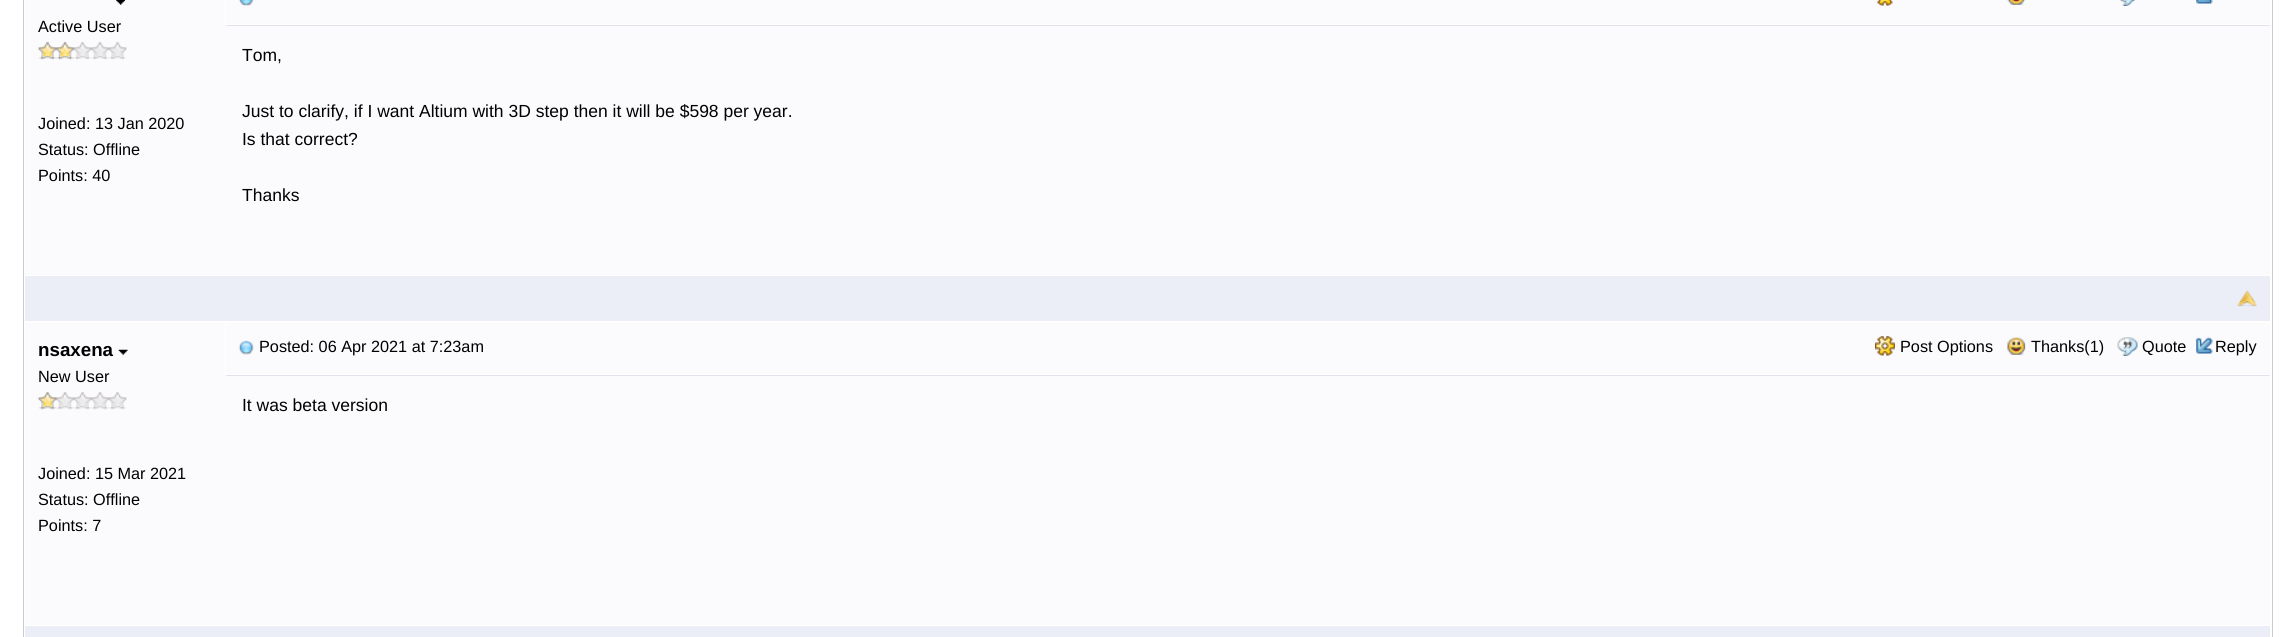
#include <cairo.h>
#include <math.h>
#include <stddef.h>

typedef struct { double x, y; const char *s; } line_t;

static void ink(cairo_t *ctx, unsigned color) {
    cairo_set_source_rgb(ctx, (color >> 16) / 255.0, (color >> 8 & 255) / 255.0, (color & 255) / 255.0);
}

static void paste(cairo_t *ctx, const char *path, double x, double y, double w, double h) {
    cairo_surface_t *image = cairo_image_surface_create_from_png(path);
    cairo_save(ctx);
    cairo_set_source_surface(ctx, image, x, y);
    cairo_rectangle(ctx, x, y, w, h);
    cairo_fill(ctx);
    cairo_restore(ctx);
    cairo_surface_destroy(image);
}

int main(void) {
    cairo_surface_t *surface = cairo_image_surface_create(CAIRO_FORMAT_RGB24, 2294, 637);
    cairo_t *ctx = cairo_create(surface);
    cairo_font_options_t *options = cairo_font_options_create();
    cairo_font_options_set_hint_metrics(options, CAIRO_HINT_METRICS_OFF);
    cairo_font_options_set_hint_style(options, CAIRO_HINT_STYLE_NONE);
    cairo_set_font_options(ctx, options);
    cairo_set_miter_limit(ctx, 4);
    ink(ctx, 0xFFFFFF);
    cairo_paint(ctx);
    cairo_rectangle(ctx, 23.5, -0.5, 2249, 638);
    ink(ctx, 0xCCCCCC);
    cairo_set_line_width(ctx, 1);
    cairo_stroke(ctx);
    ink(ctx, 0xFBFBFD);
    cairo_rectangle(ctx, 226, 0, 2044, 24);
    cairo_fill(ctx);
    paste(ctx, "media/1.png", 238, 0, 16, 6);
    paste(ctx, "media/2.png", 1876, 0, 17, 6);
    paste(ctx, "media/3.png", 2007, 0, 19, 5);
    paste(ctx, "media/4.png", 2120, 0, 16, 6);
    paste(ctx, "media/5.png", 2196, 0, 17, 4);
    cairo_rectangle(ctx, 25, 0, 200, 25);
    cairo_fill(ctx);
    paste(ctx, "media/6.png", 116, 0, 9, 5);
    cairo_rectangle(ctx, 25, 25, 2245, 250);
    cairo_fill(ctx);
    cairo_select_font_face(ctx, "Liberation Sans", CAIRO_FONT_SLANT_NORMAL, CAIRO_FONT_WEIGHT_NORMAL);
    cairo_set_font_size(ctx, 16.25);
    ink(ctx, 0x000000);
    cairo_move_to(ctx, 38, 32);
    cairo_show_text(ctx, "Active User");
    paste(ctx, "media/7.png", 37, 41, 90, 19);
    {
        static const line_t items[] = {
            {38, 129, "Joined: 13 Jan 2020"},
            {38, 155, "Status: Offline"},
            {38, 181, "Points: 40"},
        };
        for (size_t i = 0; i < sizeof items / sizeof *items; i++) {
            cairo_move_to(ctx, items[i].x, items[i].y);
            cairo_show_text(ctx, items[i].s);
        }
    }
    ink(ctx, 0xE1E3EC);
    cairo_rectangle(ctx, 226, 25, 2044, 1);
    cairo_fill(ctx);
    cairo_set_font_size(ctx, 17.5);
    ink(ctx, 0x000000);
    {
        static const line_t items[] = {
            {242, 61, "Tom,"},
            {242, 117, "Just to clarify, if I want Altium with 3D step then it will be $598 per year."},
            {242, 145, "Is that correct?"},
            {242, 201, "Thanks"},
        };
        for (size_t i = 0; i < sizeof items / sizeof *items; i++) {
            cairo_move_to(ctx, items[i].x, items[i].y);
            cairo_show_text(ctx, items[i].s);
        }
    }
    ink(ctx, 0xEBEEF7);
    cairo_rectangle(ctx, 25, 276, 2245, 45);
    cairo_fill(ctx);
    paste(ctx, "media/8.png", 2237, 290, 20, 17);
    ink(ctx, 0xFBFBFD);
    cairo_rectangle(ctx, 25, 323, 200, 52);
    cairo_fill(ctx);
    cairo_select_font_face(ctx, "Liberation Sans", CAIRO_FONT_SLANT_NORMAL, CAIRO_FONT_WEIGHT_BOLD);
    cairo_set_font_size(ctx, 18.75);
    ink(ctx, 0x000000);
    cairo_move_to(ctx, 38, 356);
    cairo_show_text(ctx, "nsaxena");
    paste(ctx, "media/9.png", 118, 349, 10, 6);
    ink(ctx, 0xFBFBFD);
    cairo_rectangle(ctx, 25, 375, 2245, 250);
    cairo_fill(ctx);
    cairo_select_font_face(ctx, "Liberation Sans", CAIRO_FONT_SLANT_NORMAL, CAIRO_FONT_WEIGHT_NORMAL);
    cairo_set_font_size(ctx, 16.25);
    ink(ctx, 0x000000);
    cairo_move_to(ctx, 38, 382);
    cairo_show_text(ctx, "New User");
    paste(ctx, "media/10.png", 37, 391, 90, 19);
    {
        static const line_t items[] = {
            {38, 479, "Joined: 15 Mar 2021"},
            {38, 505, "Status: Offline"},
            {38, 531, "Points: 7"},
        };
        for (size_t i = 0; i < sizeof items / sizeof *items; i++) {
            cairo_move_to(ctx, items[i].x, items[i].y);
            cairo_show_text(ctx, items[i].s);
        }
    }
    ink(ctx, 0xFBFBFD);
    cairo_rectangle(ctx, 226, 323, 2044, 51);
    cairo_fill(ctx);
    paste(ctx, "media/11.png", 238, 340, 16, 15);
    ink(ctx, 0x000000);
    cairo_move_to(ctx, 259, 352);
    cairo_show_text(ctx, "Posted: 06 Apr 2021 at 7:23am");
    paste(ctx, "media/12.png", 1875, 336, 20, 20);
    cairo_move_to(ctx, 1900, 352);
    cairo_show_text(ctx, "Post Options");
    paste(ctx, "media/13.png", 2007, 337, 19, 18);
    cairo_move_to(ctx, 2031, 352);
    cairo_show_text(ctx, "Thanks(1)");
    paste(ctx, "media/14.png", 2117, 337, 21, 19);
    cairo_move_to(ctx, 2142, 352);
    cairo_show_text(ctx, "Quote");
    paste(ctx, "media/15.png", 2196, 337, 17, 17);
    cairo_move_to(ctx, 2215, 352);
    cairo_show_text(ctx, "Reply");
    ink(ctx, 0xE1E3EC);
    cairo_rectangle(ctx, 226, 375, 2044, 1);
    cairo_fill(ctx);
    cairo_set_font_size(ctx, 17.5);
    ink(ctx, 0x000000);
    cairo_move_to(ctx, 242, 411);
    cairo_show_text(ctx, "It was beta version");
    ink(ctx, 0xEBEEF7);
    cairo_rectangle(ctx, 25, 626, 2245, 11);
    cairo_fill(ctx);
    cairo_surface_write_to_png(surface, "image.png");
    cairo_font_options_destroy(options);
    cairo_destroy(ctx);
    cairo_surface_destroy(surface);
    return 0;
}
